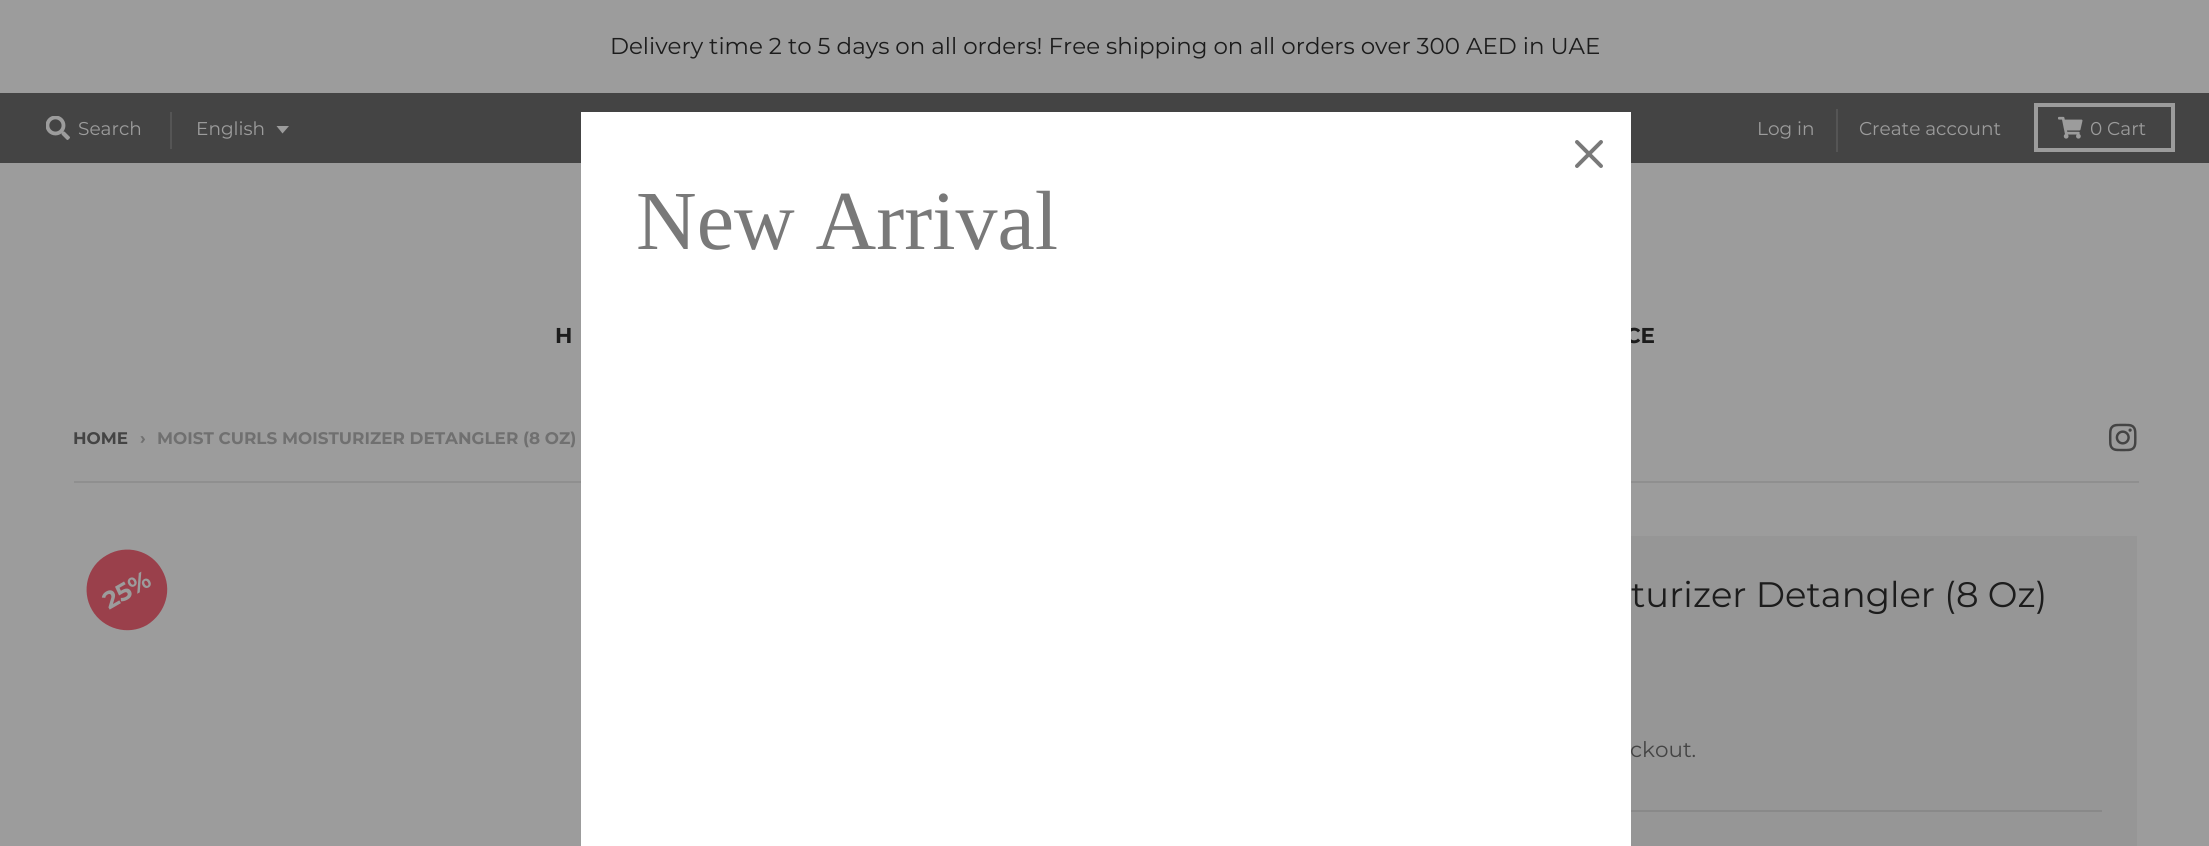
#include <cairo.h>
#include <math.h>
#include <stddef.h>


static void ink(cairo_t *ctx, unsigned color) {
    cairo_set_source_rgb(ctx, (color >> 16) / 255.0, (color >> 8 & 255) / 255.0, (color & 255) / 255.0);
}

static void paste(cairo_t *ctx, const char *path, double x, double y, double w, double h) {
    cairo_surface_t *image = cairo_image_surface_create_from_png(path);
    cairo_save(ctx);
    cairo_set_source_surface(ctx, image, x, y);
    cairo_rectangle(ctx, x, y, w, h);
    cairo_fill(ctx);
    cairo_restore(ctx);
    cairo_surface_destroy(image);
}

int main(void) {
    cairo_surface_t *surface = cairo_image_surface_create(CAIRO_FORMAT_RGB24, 2209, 846);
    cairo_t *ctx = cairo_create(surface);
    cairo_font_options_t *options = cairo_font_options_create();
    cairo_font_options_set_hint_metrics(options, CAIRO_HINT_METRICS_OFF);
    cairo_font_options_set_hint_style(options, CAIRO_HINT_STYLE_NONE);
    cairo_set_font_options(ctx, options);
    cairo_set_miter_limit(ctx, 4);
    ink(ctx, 0x9C9C9C);
    cairo_paint(ctx);
    cairo_select_font_face(ctx, "Montserrat", CAIRO_FONT_SLANT_NORMAL, CAIRO_FONT_WEIGHT_NORMAL);
    cairo_set_font_size(ctx, 22.95);
    ink(ctx, 0x1C1C1C);
    cairo_move_to(ctx, 610, 54);
    cairo_show_text(ctx, "Delivery time 2 to 5 days on all orders! Free shipping on all orders over 300 AED in UAE");
    ink(ctx, 0x444444);
    cairo_rectangle(ctx, 0, 93, 2209, 70);
    cairo_fill(ctx);
    paste(ctx, "media/1.png", 46, 116, 24, 24);
    cairo_set_font_size(ctx, 18.5);
    ink(ctx, 0x9C9C9C);
    cairo_move_to(ctx, 78, 135);
    cairo_show_text(ctx, "Search");
    ink(ctx, 0x555555);
    cairo_rectangle(ctx, 170, 112, 2, 37);
    cairo_fill(ctx);
    ink(ctx, 0x9C9C9C);
    cairo_new_path(ctx);
    cairo_move_to(ctx, 276.5, 126);
    cairo_line_to(ctx, 282.5, 133.5);
    cairo_line_to(ctx, 289, 126);
    cairo_close_path(ctx);
    cairo_fill(ctx);
    cairo_move_to(ctx, 196, 135);
    cairo_show_text(ctx, "English");
    ink(ctx, 0x555555);
    cairo_rectangle(ctx, 1836, 109, 2, 43);
    cairo_fill(ctx);
    ink(ctx, 0x9C9C9C);
    cairo_move_to(ctx, 1757, 135);
    cairo_show_text(ctx, "Log in");
    cairo_move_to(ctx, 1859, 135);
    cairo_show_text(ctx, "Create account");
    cairo_rectangle(ctx, 2036, 105, 137, 45);
    cairo_set_line_width(ctx, 4);
    cairo_stroke(ctx);
    paste(ctx, "media/2.png", 2058, 116, 25, 23);
    cairo_move_to(ctx, 2090, 135);
    cairo_show_text(ctx, "0 Cart");
    cairo_select_font_face(ctx, "Montserrat", CAIRO_FONT_SLANT_NORMAL, CAIRO_FONT_WEIGHT_BOLD);
    cairo_set_font_size(ctx, 21.5);
    ink(ctx, 0x1C1C1C);
    cairo_move_to(ctx, 555, 343);
    cairo_show_text(ctx, "H");
    cairo_move_to(ctx, 1625, 343);
    cairo_show_text(ctx, "CE");
    cairo_set_font_size(ctx, 16.8);
    ink(ctx, 0x444444);
    cairo_move_to(ctx, 73, 444);
    cairo_show_text(ctx, "HOME");
    ink(ctx, 0x707070);
    cairo_move_to(ctx, 140, 444);
    cairo_show_text(ctx, "›");
    cairo_move_to(ctx, 157, 444);
    cairo_show_text(ctx, "MOIST CURLS MOISTURIZER DETANGLER (8 OZ)");
    paste(ctx, "media/3.png", 2108, 423, 29, 29);
    ink(ctx, 0x8F8F8F);
    cairo_rectangle(ctx, 74, 481, 2065, 2);
    cairo_fill(ctx);
    ink(ctx, 0x9A404B);
    cairo_new_path(ctx);
    cairo_move_to(ctx, 107, 555);
    cairo_curve_to(ctx, 126, 544, 151, 550, 162, 570);
    cairo_curve_to(ctx, 173, 589, 166, 613, 147, 625);
    cairo_curve_to(ctx, 128, 636, 103, 629, 92, 610);
    cairo_curve_to(ctx, 81, 591, 87, 566, 107, 555);
    cairo_close_path(ctx);
    cairo_fill(ctx);
    cairo_set_font_size(ctx, 24.5);
    ink(ctx, 0x9C9C9C);
    cairo_save(ctx);
    cairo_translate(ctx, 109, 610);
    cairo_rotate(ctx, -30 * M_PI / 180);
    cairo_move_to(ctx, 0, 0);
    cairo_show_text(ctx, "25%");
    cairo_restore(ctx);
    ink(ctx, 0x969696);
    cairo_rectangle(ctx, 1631, 536, 506, 310);
    cairo_fill(ctx);
    cairo_select_font_face(ctx, "Montserrat", CAIRO_FONT_SLANT_NORMAL, CAIRO_FONT_WEIGHT_NORMAL);
    cairo_set_font_size(ctx, 35.4);
    ink(ctx, 0x1C1C1C);
    cairo_move_to(ctx, 1631, 607);
    cairo_show_text(ctx, "turizer Detangler (8 Oz)");
    ink(ctx, 0x898989);
    cairo_rectangle(ctx, 1631, 810, 471, 2);
    cairo_fill(ctx);
    cairo_set_font_size(ctx, 21.5);
    ink(ctx, 0x444444);
    cairo_move_to(ctx, 1630, 757);
    cairo_show_text(ctx, "ckout.");
    ink(ctx, 0xFFFFFF);
    cairo_rectangle(ctx, 581, 112, 1050, 734);
    cairo_fill(ctx);
    paste(ctx, "media/4.png", 1575, 140, 28, 28);
    cairo_select_font_face(ctx, "Liberation Serif", CAIRO_FONT_SLANT_NORMAL, CAIRO_FONT_WEIGHT_NORMAL);
    cairo_set_font_size(ctx, 84);
    ink(ctx, 0x797979);
    cairo_move_to(ctx, 636, 249);
    cairo_show_text(ctx, "New Arrival");
    cairo_surface_write_to_png(surface, "image.png");
    cairo_font_options_destroy(options);
    cairo_destroy(ctx);
    cairo_surface_destroy(surface);
    return 0;
}
